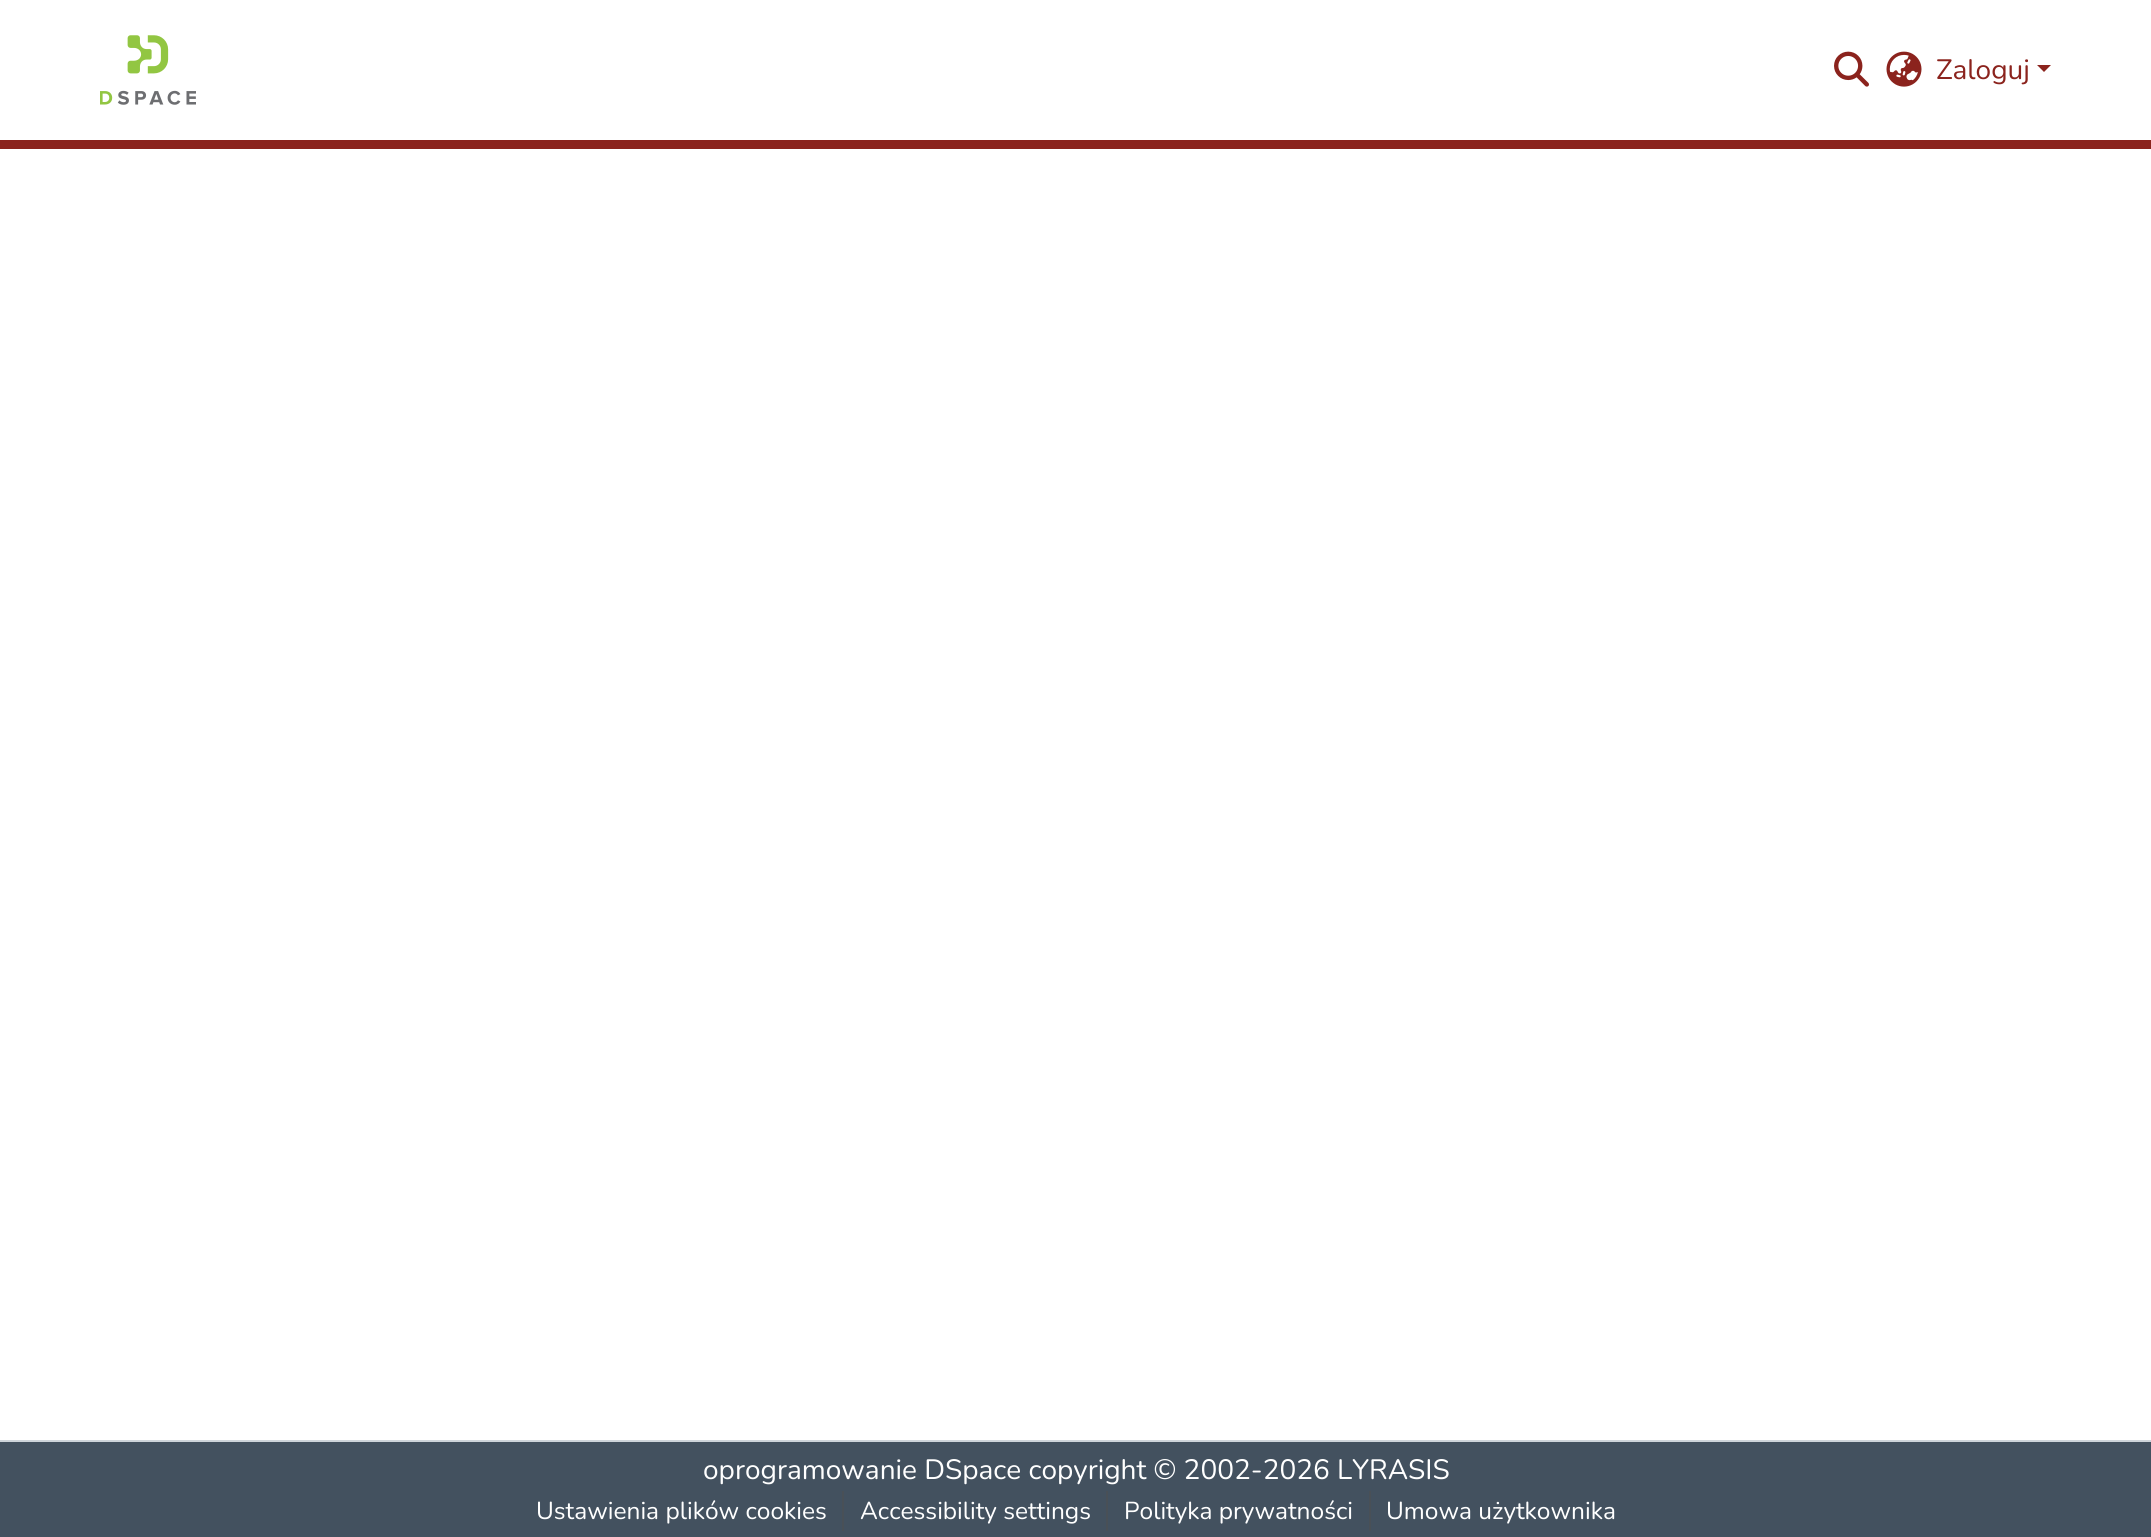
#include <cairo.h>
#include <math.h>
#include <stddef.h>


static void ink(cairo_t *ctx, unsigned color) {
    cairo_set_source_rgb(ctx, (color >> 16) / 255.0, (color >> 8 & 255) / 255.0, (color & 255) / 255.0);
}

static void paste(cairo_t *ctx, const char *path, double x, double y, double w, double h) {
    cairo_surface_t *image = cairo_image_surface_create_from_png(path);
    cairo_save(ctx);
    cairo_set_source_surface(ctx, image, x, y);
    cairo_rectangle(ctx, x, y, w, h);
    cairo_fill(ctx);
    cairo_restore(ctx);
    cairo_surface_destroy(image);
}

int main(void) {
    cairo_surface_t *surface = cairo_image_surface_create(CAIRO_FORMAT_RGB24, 2151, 1537);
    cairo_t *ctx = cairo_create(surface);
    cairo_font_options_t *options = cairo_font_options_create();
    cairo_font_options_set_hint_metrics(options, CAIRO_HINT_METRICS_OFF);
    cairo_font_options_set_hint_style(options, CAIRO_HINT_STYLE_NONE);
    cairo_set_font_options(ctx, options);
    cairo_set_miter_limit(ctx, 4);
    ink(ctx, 0xFFFFFF);
    cairo_paint(ctx);
    ink(ctx, 0x8B231D);
    cairo_rectangle(ctx, 0, 140, 2151, 9);
    cairo_fill(ctx);
    paste(ctx, "media/1.png", 100, 35, 96, 70);
    paste(ctx, "media/2.png", 1834, 51, 35, 36);
    paste(ctx, "media/3.png", 1886, 51, 36, 36);
    cairo_select_font_face(ctx, "Nunito", CAIRO_FONT_SLANT_NORMAL, CAIRO_FONT_WEIGHT_NORMAL);
    cairo_set_font_size(ctx, 28);
    cairo_move_to(ctx, 1936, 79);
    cairo_show_text(ctx, "Zaloguj");
    cairo_new_path(ctx);
    cairo_move_to(ctx, 2037, 65);
    cairo_line_to(ctx, 2051, 65);
    cairo_line_to(ctx, 2044, 72);
    cairo_close_path(ctx);
    cairo_fill(ctx);
    ink(ctx, 0x43515F);
    cairo_rectangle(ctx, 0, 1442, 2151, 95);
    cairo_fill(ctx);
    ink(ctx, 0xCED4DA);
    cairo_rectangle(ctx, 0, 1440, 2151, 2);
    cairo_fill(ctx);
    ink(ctx, 0xFFFFFF);
    cairo_move_to(ctx, 703, 1479);
    cairo_show_text(ctx, "oprogramowanie DSpace copyright © 2002-2026 LYRASIS");
    cairo_set_font_size(ctx, 24.5);
    cairo_move_to(ctx, 536, 1519);
    cairo_show_text(ctx, "Ustawienia plików cookies");
    ink(ctx, 0x495057);
    cairo_rectangle(ctx, 842, 1491, 2, 40);
    cairo_fill(ctx);
    ink(ctx, 0xFFFFFF);
    cairo_move_to(ctx, 860, 1519);
    cairo_show_text(ctx, "Accessibility settings");
    ink(ctx, 0x495057);
    cairo_rectangle(ctx, 1106, 1491, 2, 40);
    cairo_fill(ctx);
    ink(ctx, 0xFFFFFF);
    cairo_move_to(ctx, 1124, 1519);
    cairo_show_text(ctx, "Polityka prywatności");
    ink(ctx, 0x495057);
    cairo_rectangle(ctx, 1369, 1491, 2, 40);
    cairo_fill(ctx);
    ink(ctx, 0xFFFFFF);
    cairo_move_to(ctx, 1386, 1519);
    cairo_show_text(ctx, "Umowa użytkownika");
    cairo_surface_write_to_png(surface, "image.png");
    cairo_font_options_destroy(options);
    cairo_destroy(ctx);
    cairo_surface_destroy(surface);
    return 0;
}
